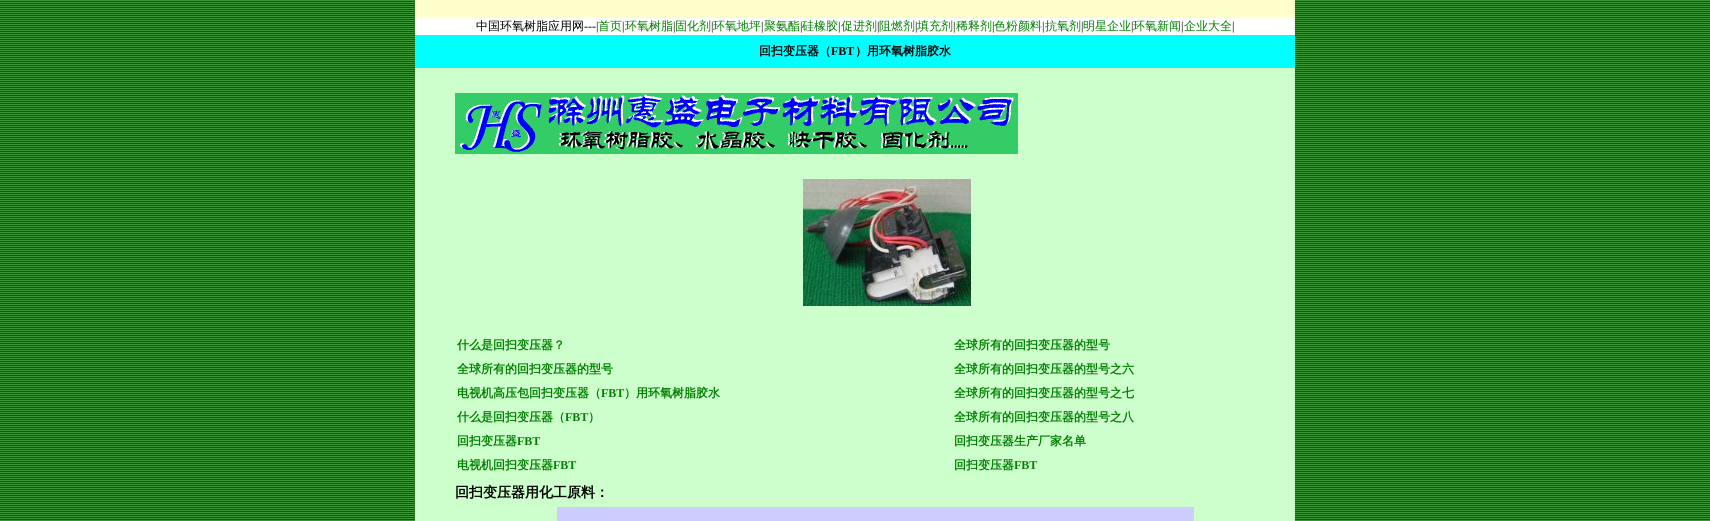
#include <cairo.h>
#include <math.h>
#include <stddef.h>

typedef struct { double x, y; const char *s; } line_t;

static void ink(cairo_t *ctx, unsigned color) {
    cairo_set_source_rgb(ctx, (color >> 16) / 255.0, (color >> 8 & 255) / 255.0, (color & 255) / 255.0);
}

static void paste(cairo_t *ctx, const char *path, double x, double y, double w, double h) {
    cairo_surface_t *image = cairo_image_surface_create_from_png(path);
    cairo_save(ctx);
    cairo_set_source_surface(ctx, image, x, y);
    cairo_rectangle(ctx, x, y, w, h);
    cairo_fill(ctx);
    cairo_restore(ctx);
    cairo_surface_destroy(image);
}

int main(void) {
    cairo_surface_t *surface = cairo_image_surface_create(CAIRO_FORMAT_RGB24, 1710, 521);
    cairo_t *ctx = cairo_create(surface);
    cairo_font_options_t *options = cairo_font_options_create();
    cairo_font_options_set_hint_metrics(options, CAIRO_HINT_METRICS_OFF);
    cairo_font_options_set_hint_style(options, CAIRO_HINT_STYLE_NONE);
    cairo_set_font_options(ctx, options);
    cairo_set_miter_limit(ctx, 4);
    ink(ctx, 0xFFFFFF);
    cairo_paint(ctx);
    paste(ctx, "media/1.png", 0, 0, 1710, 521);
    ink(ctx, 0xFFFFFF);
    cairo_rectangle(ctx, 415, 18, 880, 17);
    cairo_fill(ctx);
    ink(ctx, 0xFFFFCC);
    cairo_rectangle(ctx, 415, 0, 880, 18);
    cairo_fill(ctx);
    cairo_select_font_face(ctx, "WenQuanYi Zen Hei Medium", CAIRO_FONT_SLANT_NORMAL, CAIRO_FONT_WEIGHT_NORMAL);
    cairo_set_font_size(ctx, 12);
    ink(ctx, 0x000000);
    cairo_move_to(ctx, 476, 30);
    cairo_show_text(ctx, "中国环氧树脂应用网");
    cairo_select_font_face(ctx, "Liberation Serif", CAIRO_FONT_SLANT_NORMAL, CAIRO_FONT_WEIGHT_NORMAL);
    cairo_move_to(ctx, 584, 30);
    cairo_show_text(ctx, "---|");
    cairo_select_font_face(ctx, "WenQuanYi Zen Hei Medium", CAIRO_FONT_SLANT_NORMAL, CAIRO_FONT_WEIGHT_NORMAL);
    ink(ctx, 0x008000);
    cairo_move_to(ctx, 598, 30);
    cairo_show_text(ctx, "首页");
    cairo_select_font_face(ctx, "Liberation Serif", CAIRO_FONT_SLANT_NORMAL, CAIRO_FONT_WEIGHT_NORMAL);
    ink(ctx, 0x000000);
    cairo_move_to(ctx, 622, 30);
    cairo_show_text(ctx, "|");
    cairo_select_font_face(ctx, "WenQuanYi Zen Hei Medium", CAIRO_FONT_SLANT_NORMAL, CAIRO_FONT_WEIGHT_NORMAL);
    ink(ctx, 0x008000);
    cairo_move_to(ctx, 625, 30);
    cairo_show_text(ctx, "环氧树脂");
    cairo_select_font_face(ctx, "Liberation Serif", CAIRO_FONT_SLANT_NORMAL, CAIRO_FONT_WEIGHT_NORMAL);
    ink(ctx, 0x000000);
    cairo_move_to(ctx, 673, 30);
    cairo_show_text(ctx, "|");
    cairo_select_font_face(ctx, "WenQuanYi Zen Hei Medium", CAIRO_FONT_SLANT_NORMAL, CAIRO_FONT_WEIGHT_NORMAL);
    ink(ctx, 0x008000);
    cairo_move_to(ctx, 675, 30);
    cairo_show_text(ctx, "固化剂");
    cairo_select_font_face(ctx, "Liberation Serif", CAIRO_FONT_SLANT_NORMAL, CAIRO_FONT_WEIGHT_NORMAL);
    ink(ctx, 0x000000);
    cairo_move_to(ctx, 711, 30);
    cairo_show_text(ctx, "|");
    cairo_select_font_face(ctx, "WenQuanYi Zen Hei Medium", CAIRO_FONT_SLANT_NORMAL, CAIRO_FONT_WEIGHT_NORMAL);
    ink(ctx, 0x008000);
    cairo_move_to(ctx, 713, 30);
    cairo_show_text(ctx, "环氧地坪");
    cairo_select_font_face(ctx, "Liberation Serif", CAIRO_FONT_SLANT_NORMAL, CAIRO_FONT_WEIGHT_NORMAL);
    ink(ctx, 0x000000);
    cairo_move_to(ctx, 761, 30);
    cairo_show_text(ctx, "|");
    cairo_select_font_face(ctx, "WenQuanYi Zen Hei Medium", CAIRO_FONT_SLANT_NORMAL, CAIRO_FONT_WEIGHT_NORMAL);
    ink(ctx, 0x008000);
    cairo_move_to(ctx, 764, 30);
    cairo_show_text(ctx, "聚氨酯");
    cairo_select_font_face(ctx, "Liberation Serif", CAIRO_FONT_SLANT_NORMAL, CAIRO_FONT_WEIGHT_NORMAL);
    ink(ctx, 0x000000);
    cairo_move_to(ctx, 800, 30);
    cairo_show_text(ctx, "|");
    cairo_select_font_face(ctx, "WenQuanYi Zen Hei Medium", CAIRO_FONT_SLANT_NORMAL, CAIRO_FONT_WEIGHT_NORMAL);
    ink(ctx, 0x008000);
    cairo_move_to(ctx, 802, 30);
    cairo_show_text(ctx, "硅橡胶");
    cairo_select_font_face(ctx, "Liberation Serif", CAIRO_FONT_SLANT_NORMAL, CAIRO_FONT_WEIGHT_NORMAL);
    ink(ctx, 0x000000);
    cairo_move_to(ctx, 838, 30);
    cairo_show_text(ctx, "|");
    cairo_select_font_face(ctx, "WenQuanYi Zen Hei Medium", CAIRO_FONT_SLANT_NORMAL, CAIRO_FONT_WEIGHT_NORMAL);
    ink(ctx, 0x008000);
    cairo_move_to(ctx, 841, 30);
    cairo_show_text(ctx, "促进剂");
    cairo_select_font_face(ctx, "Liberation Serif", CAIRO_FONT_SLANT_NORMAL, CAIRO_FONT_WEIGHT_NORMAL);
    ink(ctx, 0x000000);
    cairo_move_to(ctx, 877, 30);
    cairo_show_text(ctx, "|");
    cairo_select_font_face(ctx, "WenQuanYi Zen Hei Medium", CAIRO_FONT_SLANT_NORMAL, CAIRO_FONT_WEIGHT_NORMAL);
    ink(ctx, 0x008000);
    cairo_move_to(ctx, 879, 30);
    cairo_show_text(ctx, "阻燃剂");
    cairo_select_font_face(ctx, "Liberation Serif", CAIRO_FONT_SLANT_NORMAL, CAIRO_FONT_WEIGHT_NORMAL);
    ink(ctx, 0x000000);
    cairo_move_to(ctx, 915, 30);
    cairo_show_text(ctx, "|");
    cairo_select_font_face(ctx, "WenQuanYi Zen Hei Medium", CAIRO_FONT_SLANT_NORMAL, CAIRO_FONT_WEIGHT_NORMAL);
    ink(ctx, 0x008000);
    cairo_move_to(ctx, 917, 30);
    cairo_show_text(ctx, "填充剂");
    cairo_select_font_face(ctx, "Liberation Serif", CAIRO_FONT_SLANT_NORMAL, CAIRO_FONT_WEIGHT_NORMAL);
    ink(ctx, 0x000000);
    cairo_move_to(ctx, 953, 30);
    cairo_show_text(ctx, "|");
    cairo_select_font_face(ctx, "WenQuanYi Zen Hei Medium", CAIRO_FONT_SLANT_NORMAL, CAIRO_FONT_WEIGHT_NORMAL);
    ink(ctx, 0x008000);
    cairo_move_to(ctx, 956, 30);
    cairo_show_text(ctx, "稀释剂");
    cairo_select_font_face(ctx, "Liberation Serif", CAIRO_FONT_SLANT_NORMAL, CAIRO_FONT_WEIGHT_NORMAL);
    ink(ctx, 0x000000);
    cairo_move_to(ctx, 992, 30);
    cairo_show_text(ctx, "|");
    cairo_select_font_face(ctx, "WenQuanYi Zen Hei Medium", CAIRO_FONT_SLANT_NORMAL, CAIRO_FONT_WEIGHT_NORMAL);
    ink(ctx, 0x008000);
    cairo_move_to(ctx, 994, 30);
    cairo_show_text(ctx, "色粉颜料");
    cairo_select_font_face(ctx, "Liberation Serif", CAIRO_FONT_SLANT_NORMAL, CAIRO_FONT_WEIGHT_NORMAL);
    ink(ctx, 0x000000);
    cairo_move_to(ctx, 1042, 30);
    cairo_show_text(ctx, "|");
    cairo_select_font_face(ctx, "WenQuanYi Zen Hei Medium", CAIRO_FONT_SLANT_NORMAL, CAIRO_FONT_WEIGHT_NORMAL);
    ink(ctx, 0x008000);
    cairo_move_to(ctx, 1045, 30);
    cairo_show_text(ctx, "抗氧剂");
    cairo_select_font_face(ctx, "Liberation Serif", CAIRO_FONT_SLANT_NORMAL, CAIRO_FONT_WEIGHT_NORMAL);
    ink(ctx, 0x000000);
    cairo_move_to(ctx, 1081, 30);
    cairo_show_text(ctx, "|");
    cairo_select_font_face(ctx, "WenQuanYi Zen Hei Medium", CAIRO_FONT_SLANT_NORMAL, CAIRO_FONT_WEIGHT_NORMAL);
    ink(ctx, 0x008000);
    cairo_move_to(ctx, 1083, 30);
    cairo_show_text(ctx, "明星企业");
    cairo_select_font_face(ctx, "Liberation Serif", CAIRO_FONT_SLANT_NORMAL, CAIRO_FONT_WEIGHT_NORMAL);
    ink(ctx, 0x000000);
    cairo_move_to(ctx, 1131, 30);
    cairo_show_text(ctx, "|");
    cairo_select_font_face(ctx, "WenQuanYi Zen Hei Medium", CAIRO_FONT_SLANT_NORMAL, CAIRO_FONT_WEIGHT_NORMAL);
    ink(ctx, 0x008000);
    cairo_move_to(ctx, 1133, 30);
    cairo_show_text(ctx, "环氧新闻");
    cairo_select_font_face(ctx, "Liberation Serif", CAIRO_FONT_SLANT_NORMAL, CAIRO_FONT_WEIGHT_NORMAL);
    ink(ctx, 0x000000);
    cairo_move_to(ctx, 1181, 30);
    cairo_show_text(ctx, "|");
    cairo_select_font_face(ctx, "WenQuanYi Zen Hei Medium", CAIRO_FONT_SLANT_NORMAL, CAIRO_FONT_WEIGHT_NORMAL);
    ink(ctx, 0x008000);
    cairo_move_to(ctx, 1184, 30);
    cairo_show_text(ctx, "企业大全");
    cairo_select_font_face(ctx, "Liberation Serif", CAIRO_FONT_SLANT_NORMAL, CAIRO_FONT_WEIGHT_NORMAL);
    ink(ctx, 0x000000);
    cairo_move_to(ctx, 1232, 30);
    cairo_show_text(ctx, "|");
    ink(ctx, 0x00FFFF);
    cairo_rectangle(ctx, 415, 35, 880, 33);
    cairo_fill(ctx);
    cairo_select_font_face(ctx, "WenQuanYi Zen Hei", CAIRO_FONT_SLANT_NORMAL, CAIRO_FONT_WEIGHT_BOLD);
    ink(ctx, 0x000000);
    cairo_move_to(ctx, 759, 55);
    cairo_show_text(ctx, "回扫变压器（");
    cairo_select_font_face(ctx, "Liberation Serif", CAIRO_FONT_SLANT_NORMAL, CAIRO_FONT_WEIGHT_BOLD);
    cairo_move_to(ctx, 831, 55);
    cairo_show_text(ctx, "FBT");
    cairo_select_font_face(ctx, "WenQuanYi Zen Hei", CAIRO_FONT_SLANT_NORMAL, CAIRO_FONT_WEIGHT_BOLD);
    cairo_move_to(ctx, 855, 55);
    cairo_show_text(ctx, "）用环氧树脂胶水");
    ink(ctx, 0xCCFFCC);
    cairo_rectangle(ctx, 415, 68, 880, 453);
    cairo_fill(ctx);
    paste(ctx, "media/2.png", 455, 93, 563, 61);
    paste(ctx, "media/3.png", 803, 179, 168, 127);
    ink(ctx, 0x008000);
    {
        static const line_t items[] = {
            {457, 349, "什么是回扫变压器？"},
            {457, 373, "全球所有的回扫变压器的型号"},
            {457, 397, "电视机高压包回扫变压器（"},
        };
        for (size_t i = 0; i < sizeof items / sizeof *items; i++) {
            cairo_move_to(ctx, items[i].x, items[i].y);
            cairo_show_text(ctx, items[i].s);
        }
    }
    cairo_select_font_face(ctx, "Liberation Serif", CAIRO_FONT_SLANT_NORMAL, CAIRO_FONT_WEIGHT_BOLD);
    cairo_move_to(ctx, 601, 397);
    cairo_show_text(ctx, "FBT");
    cairo_select_font_face(ctx, "WenQuanYi Zen Hei", CAIRO_FONT_SLANT_NORMAL, CAIRO_FONT_WEIGHT_BOLD);
    cairo_move_to(ctx, 624, 397);
    cairo_show_text(ctx, "）用环氧树脂胶水");
    cairo_move_to(ctx, 457, 421);
    cairo_show_text(ctx, "什么是回扫变压器（");
    cairo_select_font_face(ctx, "Liberation Serif", CAIRO_FONT_SLANT_NORMAL, CAIRO_FONT_WEIGHT_BOLD);
    cairo_move_to(ctx, 565, 421);
    cairo_show_text(ctx, "FBT");
    cairo_select_font_face(ctx, "WenQuanYi Zen Hei", CAIRO_FONT_SLANT_NORMAL, CAIRO_FONT_WEIGHT_BOLD);
    cairo_move_to(ctx, 588, 421);
    cairo_show_text(ctx, "）");
    cairo_move_to(ctx, 457, 445);
    cairo_show_text(ctx, "回扫变压器");
    cairo_select_font_face(ctx, "Liberation Serif", CAIRO_FONT_SLANT_NORMAL, CAIRO_FONT_WEIGHT_BOLD);
    cairo_move_to(ctx, 517, 445);
    cairo_show_text(ctx, "FBT");
    cairo_select_font_face(ctx, "WenQuanYi Zen Hei", CAIRO_FONT_SLANT_NORMAL, CAIRO_FONT_WEIGHT_BOLD);
    cairo_move_to(ctx, 457, 469);
    cairo_show_text(ctx, "电视机回扫变压器");
    cairo_select_font_face(ctx, "Liberation Serif", CAIRO_FONT_SLANT_NORMAL, CAIRO_FONT_WEIGHT_BOLD);
    cairo_move_to(ctx, 553, 469);
    cairo_show_text(ctx, "FBT");
    cairo_select_font_face(ctx, "WenQuanYi Zen Hei", CAIRO_FONT_SLANT_NORMAL, CAIRO_FONT_WEIGHT_BOLD);
    {
        static const line_t items[] = {
            {954, 349, "全球所有的回扫变压器的型号"},
            {954, 373, "全球所有的回扫变压器的型号之六"},
            {954, 397, "全球所有的回扫变压器的型号之七"},
            {954, 421, "全球所有的回扫变压器的型号之八"},
            {954, 445, "回扫变压器生产厂家名单"},
            {954, 469, "回扫变压器"},
        };
        for (size_t i = 0; i < sizeof items / sizeof *items; i++) {
            cairo_move_to(ctx, items[i].x, items[i].y);
            cairo_show_text(ctx, items[i].s);
        }
    }
    cairo_select_font_face(ctx, "Liberation Serif", CAIRO_FONT_SLANT_NORMAL, CAIRO_FONT_WEIGHT_BOLD);
    cairo_move_to(ctx, 1014, 469);
    cairo_show_text(ctx, "FBT");
    cairo_select_font_face(ctx, "WenQuanYi Zen Hei", CAIRO_FONT_SLANT_NORMAL, CAIRO_FONT_WEIGHT_BOLD);
    cairo_set_font_size(ctx, 14);
    ink(ctx, 0x000000);
    cairo_move_to(ctx, 455, 497);
    cairo_show_text(ctx, "回扫变压器用化工原料：");
    cairo_rectangle(ctx, 557.5, 507.5, 636, 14);
    ink(ctx, 0xCCCCFF);
    cairo_set_line_width(ctx, 1);
    cairo_stroke(ctx);
    cairo_rectangle(ctx, 558, 508, 635, 13);
    cairo_fill(ctx);
    cairo_surface_write_to_png(surface, "image.png");
    cairo_font_options_destroy(options);
    cairo_destroy(ctx);
    cairo_surface_destroy(surface);
    return 0;
}
